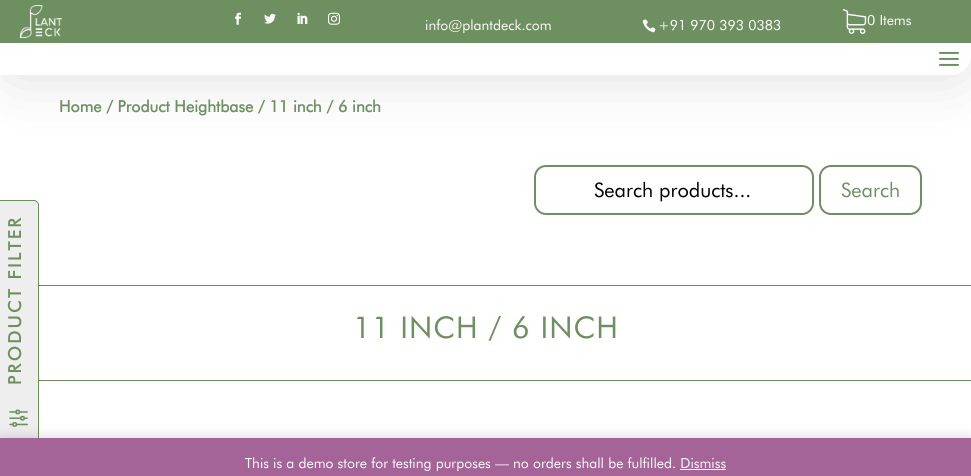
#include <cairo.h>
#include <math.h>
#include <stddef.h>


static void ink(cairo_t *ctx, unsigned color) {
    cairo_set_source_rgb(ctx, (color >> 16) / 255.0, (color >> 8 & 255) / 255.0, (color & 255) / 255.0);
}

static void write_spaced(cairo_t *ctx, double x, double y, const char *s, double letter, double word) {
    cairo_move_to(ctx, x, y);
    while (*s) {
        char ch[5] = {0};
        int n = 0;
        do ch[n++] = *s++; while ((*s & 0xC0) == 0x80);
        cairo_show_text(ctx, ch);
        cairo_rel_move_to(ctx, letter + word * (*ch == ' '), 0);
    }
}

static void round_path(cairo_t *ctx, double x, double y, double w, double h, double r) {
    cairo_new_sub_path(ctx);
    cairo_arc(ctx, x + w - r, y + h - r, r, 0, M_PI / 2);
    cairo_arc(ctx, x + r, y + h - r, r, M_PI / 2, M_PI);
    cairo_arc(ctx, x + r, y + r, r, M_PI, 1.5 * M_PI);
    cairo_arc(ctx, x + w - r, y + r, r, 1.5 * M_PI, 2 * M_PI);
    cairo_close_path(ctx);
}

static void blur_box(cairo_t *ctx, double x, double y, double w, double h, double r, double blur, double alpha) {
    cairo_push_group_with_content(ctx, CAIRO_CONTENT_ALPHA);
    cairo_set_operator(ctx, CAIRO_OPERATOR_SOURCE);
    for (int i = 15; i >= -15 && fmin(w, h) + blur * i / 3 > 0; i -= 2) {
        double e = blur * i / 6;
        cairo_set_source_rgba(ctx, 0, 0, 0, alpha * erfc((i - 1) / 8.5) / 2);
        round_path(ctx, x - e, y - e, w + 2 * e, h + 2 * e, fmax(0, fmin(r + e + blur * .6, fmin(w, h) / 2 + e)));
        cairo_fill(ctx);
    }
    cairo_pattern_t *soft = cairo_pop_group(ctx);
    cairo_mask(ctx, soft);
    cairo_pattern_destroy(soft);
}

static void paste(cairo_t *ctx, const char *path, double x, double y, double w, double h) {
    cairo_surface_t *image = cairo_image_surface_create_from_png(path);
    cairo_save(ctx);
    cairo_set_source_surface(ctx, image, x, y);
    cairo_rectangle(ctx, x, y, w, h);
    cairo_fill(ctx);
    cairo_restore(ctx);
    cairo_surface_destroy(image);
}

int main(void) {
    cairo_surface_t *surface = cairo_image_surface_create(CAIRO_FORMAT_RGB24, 971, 476);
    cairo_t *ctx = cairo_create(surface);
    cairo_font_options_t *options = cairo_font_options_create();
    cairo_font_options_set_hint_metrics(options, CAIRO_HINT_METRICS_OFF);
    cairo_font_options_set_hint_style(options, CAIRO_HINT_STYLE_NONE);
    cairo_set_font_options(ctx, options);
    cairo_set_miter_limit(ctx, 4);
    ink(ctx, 0xFFFFFF);
    cairo_paint(ctx);
    round_path(ctx, 535, 166, 278, 48, 11);
    ink(ctx, 0x6E8F60);
    cairo_stroke(ctx);
    round_path(ctx, 820, 166, 101, 48, 11);
    cairo_stroke(ctx);
    ink(ctx, 0x000000);
    blur_box(ctx, 0, 2, 971, 75, 20, 30, 0.13);
    ink(ctx, 0x6E8F60);
    cairo_rectangle(ctx, 0, 0, 971, 43);
    cairo_fill(ctx);
    paste(ctx, "media/1.png", 20, 5, 42, 33);
    paste(ctx, "media/2.png", 235, 12, 6, 13);
    paste(ctx, "media/3.png", 264, 13, 12, 11);
    paste(ctx, "media/4.png", 297, 12, 11, 12);
    paste(ctx, "media/5.png", 328, 12, 12, 13);
    cairo_select_font_face(ctx, "Futura", CAIRO_FONT_SLANT_NORMAL, CAIRO_FONT_WEIGHT_NORMAL);
    cairo_set_font_size(ctx, 14);
    ink(ctx, 0xFFFFFF);
    cairo_move_to(ctx, 425, 30);
    cairo_show_text(ctx, "info@plantdeck.com");
    paste(ctx, "media/6.png", 642, 19, 14, 14);
    cairo_move_to(ctx, 658, 30);
    cairo_show_text(ctx, "+91 970 393 0383");
    paste(ctx, "media/7.png", 842, 9, 25, 25);
    cairo_move_to(ctx, 867, 25);
    cairo_show_text(ctx, "0 Items");
    cairo_new_path(ctx);
    cairo_move_to(ctx, 0, 43);
    cairo_line_to(ctx, 971, 43);
    cairo_line_to(ctx, 971, 55);
    cairo_curve_to(ctx, 971, 66, 962, 75, 951, 75);
    cairo_line_to(ctx, 0, 75);
    cairo_close_path(ctx);
    cairo_fill(ctx);
    paste(ctx, "media/8.png", 939, 51, 20, 15);
    cairo_select_font_face(ctx, "Futura", CAIRO_FONT_SLANT_NORMAL, CAIRO_FONT_WEIGHT_BOLD);
    cairo_set_font_size(ctx, 16);
    ink(ctx, 0x6E8F60);
    cairo_move_to(ctx, 59, 112);
    cairo_show_text(ctx, "Home / Product Heightbase / 11 inch / 6 inch");
    cairo_select_font_face(ctx, "Futura", CAIRO_FONT_SLANT_NORMAL, CAIRO_FONT_WEIGHT_NORMAL);
    cairo_set_font_size(ctx, 20);
    ink(ctx, 0x000000);
    cairo_move_to(ctx, 594, 197);
    cairo_show_text(ctx, "Search products...");
    ink(ctx, 0x6E8F60);
    cairo_move_to(ctx, 841, 197);
    cairo_show_text(ctx, "Search");
    ink(ctx, 0xEEEEEE);
    cairo_new_path(ctx);
    cairo_move_to(ctx, -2, 446);
    cairo_line_to(ctx, -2, 201);
    cairo_line_to(ctx, 34, 201);
    cairo_curve_to(ctx, 36, 201, 38, 203, 38, 205);
    cairo_line_to(ctx, 38, 442);
    cairo_curve_to(ctx, 38, 444, 36, 446, 34, 446);
    cairo_close_path(ctx);
    cairo_fill(ctx);
    ink(ctx, 0x6E8F60);
    cairo_set_fill_rule(ctx, CAIRO_FILL_RULE_EVEN_ODD);
    cairo_new_path(ctx);
    cairo_move_to(ctx, -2, 447);
    cairo_line_to(ctx, -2, 200);
    cairo_line_to(ctx, 34, 200);
    cairo_curve_to(ctx, 37, 200, 39, 203, 39, 205);
    cairo_line_to(ctx, 39, 442);
    cairo_curve_to(ctx, 39, 445, 37, 447, 34, 447);
    cairo_close_path(ctx);
    cairo_move_to(ctx, -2, 446);
    cairo_line_to(ctx, -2, 201);
    cairo_line_to(ctx, 34, 201);
    cairo_curve_to(ctx, 36, 201, 38, 203, 38, 205);
    cairo_line_to(ctx, 38, 442);
    cairo_curve_to(ctx, 38, 444, 36, 446, 34, 446);
    cairo_close_path(ctx);
    cairo_fill(ctx);
    cairo_select_font_face(ctx, "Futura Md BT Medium", CAIRO_FONT_SLANT_NORMAL, CAIRO_FONT_WEIGHT_NORMAL);
    cairo_set_font_size(ctx, 18);
    cairo_save(ctx);
    cairo_translate(ctx, 21, 385);
    cairo_rotate(ctx, -90 * M_PI / 180);
    write_spaced(ctx, 0, 0, "PRODUCT FILTER", 2, 0);
    cairo_restore(ctx);
    paste(ctx, "media/9.png", 9, 409, 19, 18);
    cairo_rectangle(ctx, 39, 285, 932, 1);
    cairo_fill(ctx);
    cairo_select_font_face(ctx, "Futura", CAIRO_FONT_SLANT_NORMAL, CAIRO_FONT_WEIGHT_NORMAL);
    cairo_set_font_size(ctx, 30);
    write_spaced(ctx, 353, 338, "11 INCH / 6 INCH", 1, 0);
    cairo_rectangle(ctx, 39, 380, 932, 1);
    cairo_fill(ctx);
    ink(ctx, 0x000000);
    blur_box(ctx, 0, 439, 971, 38, 0, 7, 0.2);
    ink(ctx, 0xA46497);
    cairo_rectangle(ctx, 0, 438, 971, 38);
    cairo_fill(ctx);
    cairo_set_font_size(ctx, 14);
    ink(ctx, 0xFFFFFF);
    cairo_move_to(ctx, 245, 468);
    cairo_show_text(ctx, "This is a demo store for testing purposes — no orders shall be fulfilled. Dismiss");
    cairo_rectangle(ctx, 680, 469, 46, 1);
    cairo_fill(ctx);
    cairo_surface_write_to_png(surface, "image.png");
    cairo_font_options_destroy(options);
    cairo_destroy(ctx);
    cairo_surface_destroy(surface);
    return 0;
}
